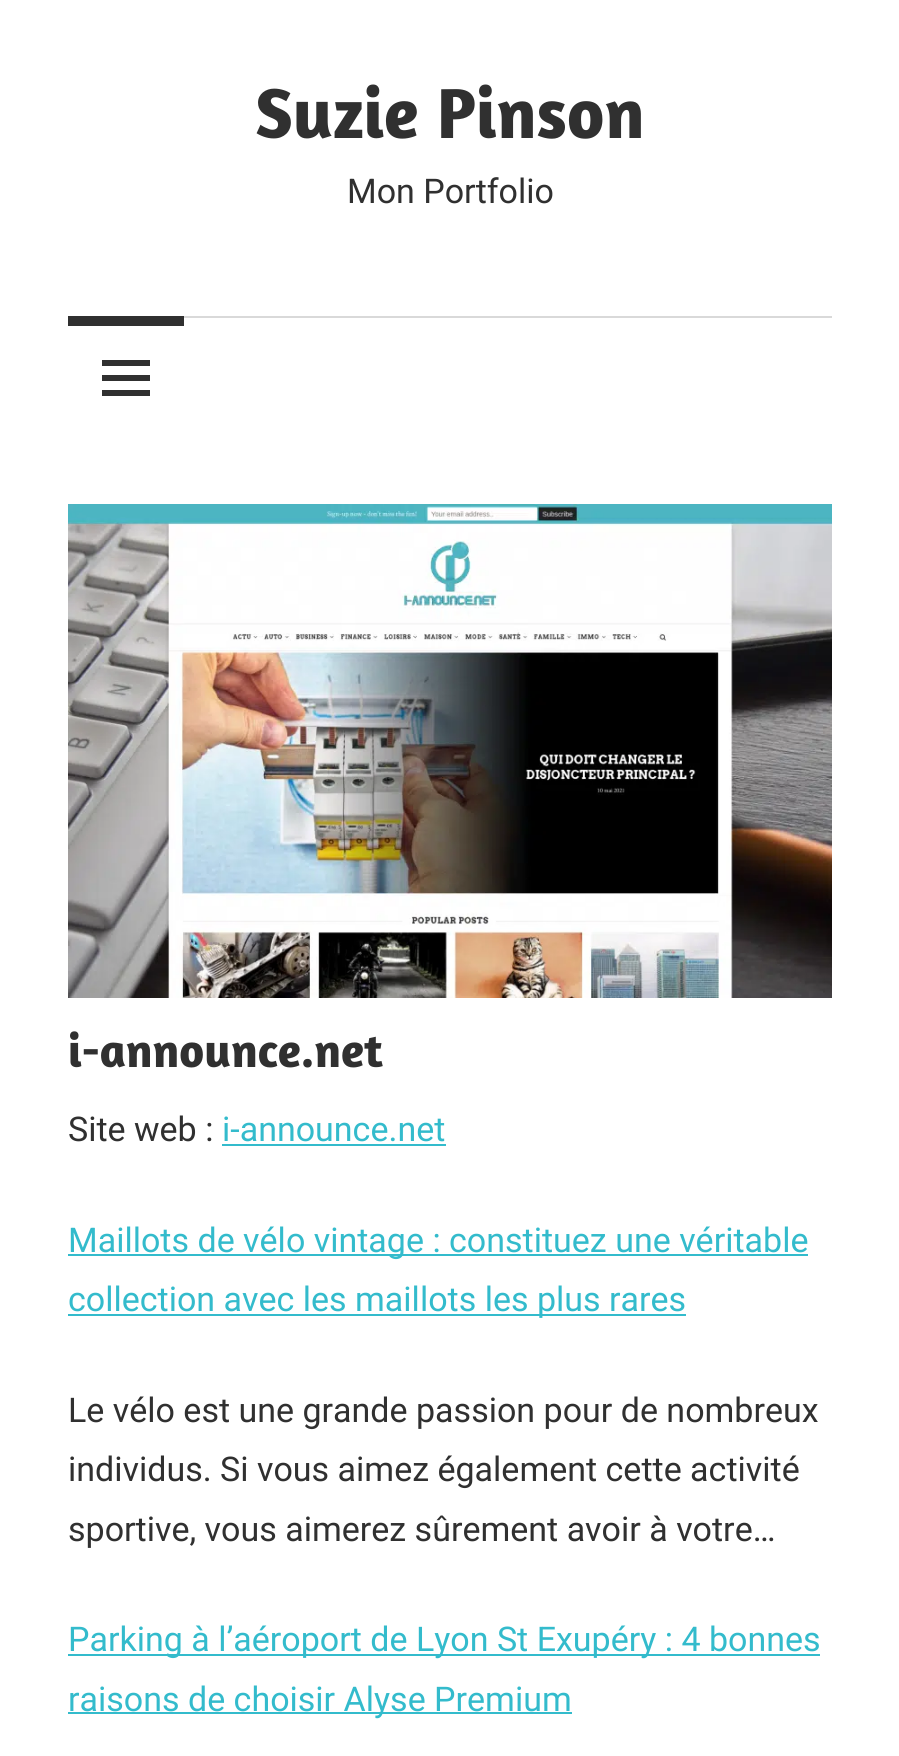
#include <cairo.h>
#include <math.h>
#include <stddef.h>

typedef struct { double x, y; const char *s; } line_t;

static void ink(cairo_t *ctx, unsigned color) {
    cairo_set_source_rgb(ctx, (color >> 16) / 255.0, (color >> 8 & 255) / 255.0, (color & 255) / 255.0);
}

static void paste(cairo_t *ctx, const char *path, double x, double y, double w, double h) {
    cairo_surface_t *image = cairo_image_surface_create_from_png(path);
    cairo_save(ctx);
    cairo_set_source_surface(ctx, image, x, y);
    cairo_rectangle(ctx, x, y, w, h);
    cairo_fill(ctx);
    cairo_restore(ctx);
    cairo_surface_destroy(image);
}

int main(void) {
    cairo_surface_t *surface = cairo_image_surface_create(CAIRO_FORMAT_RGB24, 899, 1756);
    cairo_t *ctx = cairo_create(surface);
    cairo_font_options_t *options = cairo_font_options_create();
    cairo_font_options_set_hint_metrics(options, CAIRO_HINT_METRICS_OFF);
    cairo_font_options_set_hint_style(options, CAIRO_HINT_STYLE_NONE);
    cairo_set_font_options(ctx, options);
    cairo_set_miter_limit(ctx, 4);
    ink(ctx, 0xFFFFFF);
    cairo_paint(ctx);
    cairo_select_font_face(ctx, "Amaranth", CAIRO_FONT_SLANT_NORMAL, CAIRO_FONT_WEIGHT_BOLD);
    cairo_set_font_size(ctx, 72);
    ink(ctx, 0x303030);
    cairo_move_to(ctx, 255, 138);
    cairo_show_text(ctx, "Suzie Pinson");
    cairo_select_font_face(ctx, "Roboto", CAIRO_FONT_SLANT_NORMAL, CAIRO_FONT_WEIGHT_NORMAL);
    cairo_set_font_size(ctx, 34);
    cairo_move_to(ctx, 347, 203);
    cairo_show_text(ctx, "Mon Portfolio");
    ink(ctx, 0xD9D9D9);
    cairo_rectangle(ctx, 184, 316, 648, 2);
    cairo_fill(ctx);
    ink(ctx, 0x303030);
    cairo_rectangle(ctx, 68, 316, 116, 10);
    cairo_fill(ctx);
    paste(ctx, "media/1.png", 102, 360, 48, 36);
    paste(ctx, "media/2.png", 68, 504, 764, 494);
    cairo_select_font_face(ctx, "Amaranth", CAIRO_FONT_SLANT_NORMAL, CAIRO_FONT_WEIGHT_BOLD);
    cairo_set_font_size(ctx, 48);
    cairo_move_to(ctx, 68, 1067);
    cairo_show_text(ctx, "i-announce.net");
    cairo_select_font_face(ctx, "Roboto", CAIRO_FONT_SLANT_NORMAL, CAIRO_FONT_WEIGHT_NORMAL);
    cairo_set_font_size(ctx, 34);
    cairo_move_to(ctx, 68, 1141);
    cairo_show_text(ctx, "Site web :");
    ink(ctx, 0x33BBCC);
    cairo_move_to(ctx, 222, 1141);
    cairo_show_text(ctx, "i-announce.net");
    cairo_rectangle(ctx, 222, 1144, 224, 2);
    cairo_fill(ctx);
    cairo_rectangle(ctx, 68, 1254, 740, 2);
    cairo_fill(ctx);
    cairo_move_to(ctx, 68, 1252);
    cairo_show_text(ctx, "Maillots de vélo vintage : constituez une véritable");
    cairo_rectangle(ctx, 68, 1314, 618, 2);
    cairo_fill(ctx);
    cairo_move_to(ctx, 68, 1311);
    cairo_show_text(ctx, "collection avec les maillots les plus rares");
    ink(ctx, 0x303030);
    {
        static const line_t items[] = {
            {68, 1422, "Le vélo est une grande passion pour de nombreux"},
            {68, 1481, "individus. Si vous aimez également cette activité"},
            {68, 1541, "sportive, vous aimerez sûrement avoir à votre…"},
        };
        for (size_t i = 0; i < sizeof items / sizeof *items; i++) {
            cairo_move_to(ctx, items[i].x, items[i].y);
            cairo_show_text(ctx, items[i].s);
        }
    }
    ink(ctx, 0x33BBCC);
    cairo_rectangle(ctx, 68, 1654, 752, 2);
    cairo_fill(ctx);
    cairo_move_to(ctx, 68, 1651);
    cairo_show_text(ctx, "Parking à l’aéroport de Lyon St Exupéry : 4 bonnes");
    cairo_rectangle(ctx, 68, 1712, 504, 2);
    cairo_fill(ctx);
    cairo_move_to(ctx, 68, 1711);
    cairo_show_text(ctx, "raisons de choisir Alyse Premium");
    cairo_surface_write_to_png(surface, "image.png");
    cairo_font_options_destroy(options);
    cairo_destroy(ctx);
    cairo_surface_destroy(surface);
    return 0;
}
